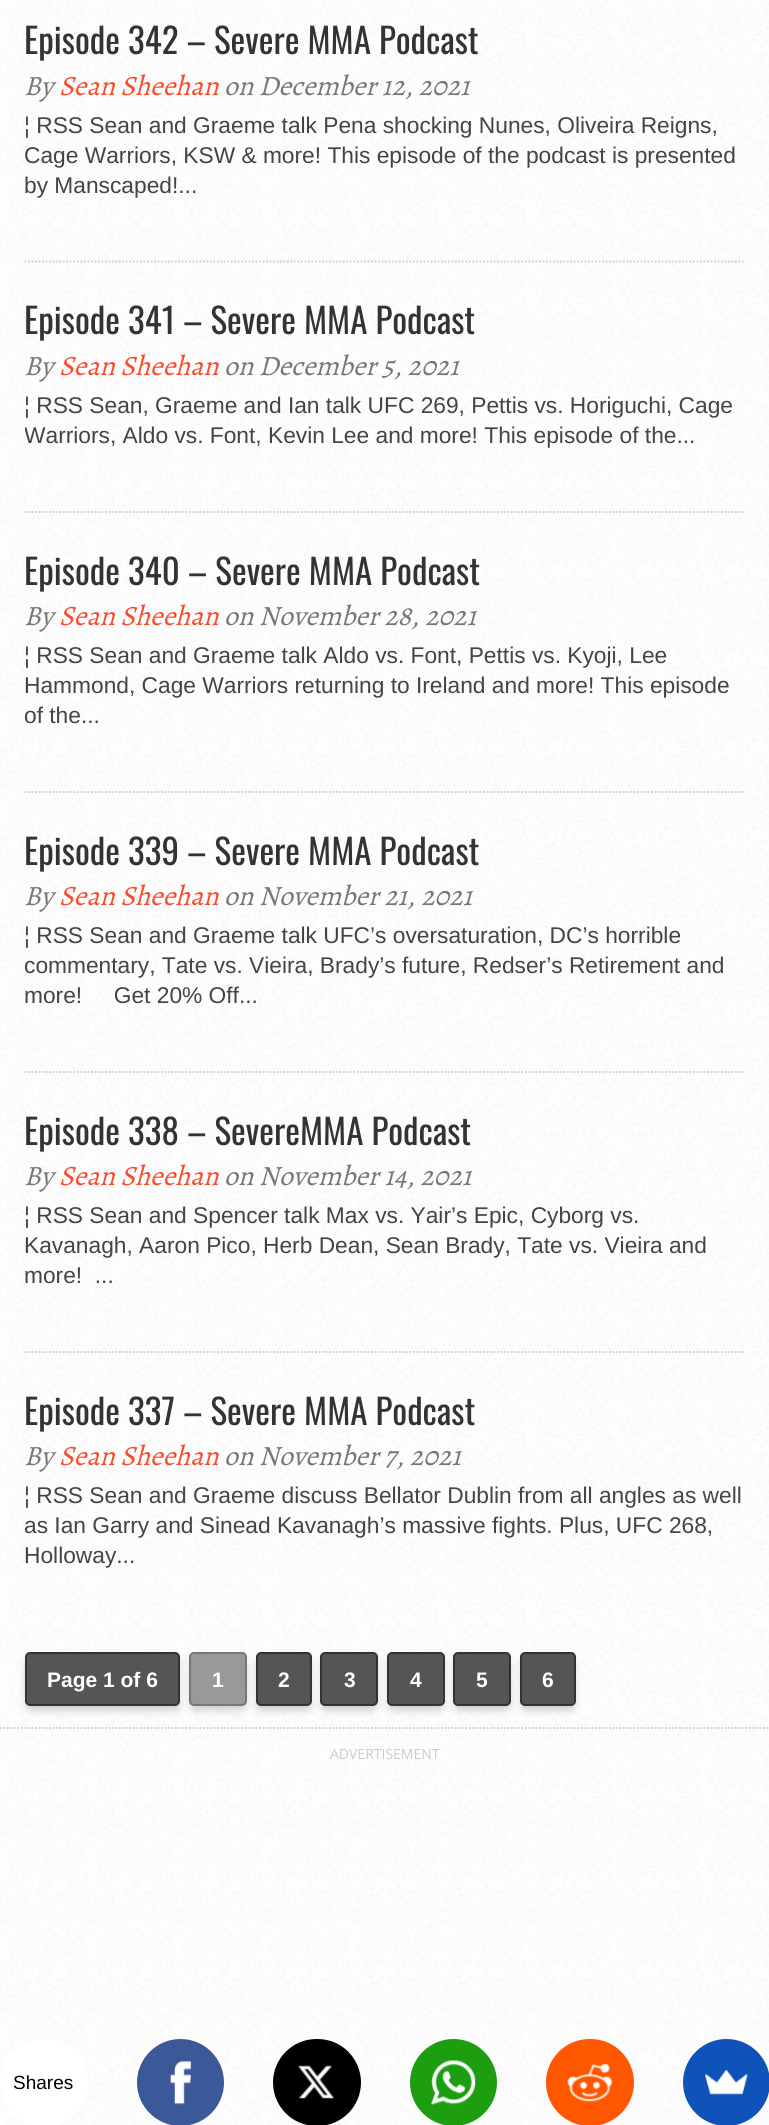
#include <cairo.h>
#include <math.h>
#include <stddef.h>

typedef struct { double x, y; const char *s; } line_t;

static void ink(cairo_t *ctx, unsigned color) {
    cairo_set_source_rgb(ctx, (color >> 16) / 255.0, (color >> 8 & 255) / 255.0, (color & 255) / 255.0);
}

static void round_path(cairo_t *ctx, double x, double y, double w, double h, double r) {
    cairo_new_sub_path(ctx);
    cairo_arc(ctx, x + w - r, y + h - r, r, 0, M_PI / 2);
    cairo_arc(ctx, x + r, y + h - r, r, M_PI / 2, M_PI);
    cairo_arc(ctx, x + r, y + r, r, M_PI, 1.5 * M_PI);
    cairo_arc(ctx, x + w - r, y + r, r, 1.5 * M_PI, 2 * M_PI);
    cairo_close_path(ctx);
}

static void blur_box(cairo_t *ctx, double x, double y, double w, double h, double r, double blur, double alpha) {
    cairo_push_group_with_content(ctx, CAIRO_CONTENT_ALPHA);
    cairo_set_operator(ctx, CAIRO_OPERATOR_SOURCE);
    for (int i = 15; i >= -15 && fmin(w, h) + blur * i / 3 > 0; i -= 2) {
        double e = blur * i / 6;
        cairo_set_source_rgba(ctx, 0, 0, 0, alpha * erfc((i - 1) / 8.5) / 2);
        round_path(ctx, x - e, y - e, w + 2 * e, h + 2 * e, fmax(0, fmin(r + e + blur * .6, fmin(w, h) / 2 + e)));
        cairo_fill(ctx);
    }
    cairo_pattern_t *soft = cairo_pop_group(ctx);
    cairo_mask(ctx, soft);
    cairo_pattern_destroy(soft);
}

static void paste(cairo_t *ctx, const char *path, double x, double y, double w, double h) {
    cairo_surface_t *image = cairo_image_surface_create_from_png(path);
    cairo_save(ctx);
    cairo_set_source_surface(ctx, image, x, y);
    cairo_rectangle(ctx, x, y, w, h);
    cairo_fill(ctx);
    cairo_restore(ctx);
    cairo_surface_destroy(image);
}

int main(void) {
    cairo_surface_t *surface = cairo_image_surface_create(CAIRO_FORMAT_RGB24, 769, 2125);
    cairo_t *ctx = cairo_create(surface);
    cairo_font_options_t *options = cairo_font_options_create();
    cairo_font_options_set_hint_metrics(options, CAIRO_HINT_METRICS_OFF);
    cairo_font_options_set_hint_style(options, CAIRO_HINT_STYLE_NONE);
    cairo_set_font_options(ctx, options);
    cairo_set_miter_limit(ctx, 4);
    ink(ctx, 0xFFFFFF);
    cairo_paint(ctx);
    paste(ctx, "media/1.png", 0, 0, 769, 2125);
    cairo_new_path(ctx);
    cairo_move_to(ctx, 24.5, 261.5);
    cairo_line_to(ctx, 745.5, 261.5);
    ink(ctx, 0xCCCCCC);
    cairo_set_line_width(ctx, 1.8);
    cairo_set_dash(ctx, (double[]){1.75, 1.75}, 2, 0);
    cairo_stroke(ctx);
    cairo_select_font_face(ctx, "Oswald", CAIRO_FONT_SLANT_NORMAL, CAIRO_FONT_WEIGHT_NORMAL);
    cairo_set_font_size(ctx, 35);
    ink(ctx, 0x333333);
    cairo_move_to(ctx, 24, 54);
    cairo_show_text(ctx, "Episode 342 – Severe MMA Podcast");
    cairo_select_font_face(ctx, "Alegreya", CAIRO_FONT_SLANT_ITALIC, CAIRO_FONT_WEIGHT_NORMAL);
    cairo_set_font_size(ctx, 28);
    ink(ctx, 0x777777);
    cairo_move_to(ctx, 24, 95);
    cairo_show_text(ctx, "By");
    ink(ctx, 0xFA4B2A);
    cairo_move_to(ctx, 59, 95);
    cairo_show_text(ctx, "Sean Sheehan");
    ink(ctx, 0x777777);
    cairo_move_to(ctx, 224, 95);
    cairo_show_text(ctx, "on December 12, 2021");
    cairo_select_font_face(ctx, "Liberation Sans", CAIRO_FONT_SLANT_NORMAL, CAIRO_FONT_WEIGHT_NORMAL);
    cairo_set_font_size(ctx, 22.75);
    ink(ctx, 0x444444);
    {
        static const line_t items[] = {
            {24, 133, "¦ RSS Sean and Graeme talk Pena shocking Nunes, Oliveira Reigns,"},
            {24, 163, "Cage Warriors, KSW & more! This episode of the podcast is presented"},
            {24, 193, "by Manscaped!..."},
        };
        for (size_t i = 0; i < sizeof items / sizeof *items; i++) {
            cairo_move_to(ctx, items[i].x, items[i].y);
            cairo_show_text(ctx, items[i].s);
        }
    }
    cairo_new_path(ctx);
    cairo_move_to(ctx, 24.5, 512);
    cairo_line_to(ctx, 745.5, 512);
    ink(ctx, 0xCCCCCC);
    cairo_stroke(ctx);
    cairo_select_font_face(ctx, "Oswald", CAIRO_FONT_SLANT_NORMAL, CAIRO_FONT_WEIGHT_NORMAL);
    cairo_set_font_size(ctx, 35);
    ink(ctx, 0x333333);
    cairo_move_to(ctx, 24, 334);
    cairo_show_text(ctx, "Episode 341 – Severe MMA Podcast");
    cairo_select_font_face(ctx, "Alegreya", CAIRO_FONT_SLANT_ITALIC, CAIRO_FONT_WEIGHT_NORMAL);
    cairo_set_font_size(ctx, 28);
    ink(ctx, 0x777777);
    cairo_move_to(ctx, 24, 375);
    cairo_show_text(ctx, "By");
    ink(ctx, 0xFA4B2A);
    cairo_move_to(ctx, 59, 375);
    cairo_show_text(ctx, "Sean Sheehan");
    ink(ctx, 0x777777);
    cairo_move_to(ctx, 224, 375);
    cairo_show_text(ctx, "on December 5, 2021");
    cairo_select_font_face(ctx, "Liberation Sans", CAIRO_FONT_SLANT_NORMAL, CAIRO_FONT_WEIGHT_NORMAL);
    cairo_set_font_size(ctx, 22.75);
    ink(ctx, 0x444444);
    cairo_move_to(ctx, 24, 413);
    cairo_show_text(ctx, "¦ RSS Sean, Graeme and Ian talk UFC 269, Pettis vs. Horiguchi, Cage");
    cairo_save(ctx);
    cairo_rectangle(ctx, 25, 390, 721, 60);
    cairo_clip(ctx);
    cairo_move_to(ctx, 24, 443);
    cairo_show_text(ctx, "Warriors, Aldo vs. Font, Kevin Lee and more! This episode of the...");
    cairo_restore(ctx);
    cairo_new_path(ctx);
    cairo_move_to(ctx, 24.5, 792);
    cairo_line_to(ctx, 745.5, 792);
    ink(ctx, 0xCCCCCC);
    cairo_stroke(ctx);
    cairo_select_font_face(ctx, "Oswald", CAIRO_FONT_SLANT_NORMAL, CAIRO_FONT_WEIGHT_NORMAL);
    cairo_set_font_size(ctx, 35);
    ink(ctx, 0x333333);
    cairo_move_to(ctx, 24, 585);
    cairo_show_text(ctx, "Episode 340 – Severe MMA Podcast");
    cairo_select_font_face(ctx, "Alegreya", CAIRO_FONT_SLANT_ITALIC, CAIRO_FONT_WEIGHT_NORMAL);
    cairo_set_font_size(ctx, 28);
    ink(ctx, 0x777777);
    cairo_move_to(ctx, 24, 625);
    cairo_show_text(ctx, "By");
    ink(ctx, 0xFA4B2A);
    cairo_move_to(ctx, 59, 625);
    cairo_show_text(ctx, "Sean Sheehan");
    ink(ctx, 0x777777);
    cairo_move_to(ctx, 224, 625);
    cairo_show_text(ctx, "on November 28, 2021");
    cairo_select_font_face(ctx, "Liberation Sans", CAIRO_FONT_SLANT_NORMAL, CAIRO_FONT_WEIGHT_NORMAL);
    cairo_set_font_size(ctx, 22.75);
    ink(ctx, 0x444444);
    {
        static const line_t items[] = {
            {24, 663, "¦ RSS Sean and Graeme talk Aldo vs. Font, Pettis vs. Kyoji, Lee"},
            {24, 693, "Hammond, Cage Warriors returning to Ireland and more! This episode"},
            {24, 723, "of the..."},
        };
        for (size_t i = 0; i < sizeof items / sizeof *items; i++) {
            cairo_move_to(ctx, items[i].x, items[i].y);
            cairo_show_text(ctx, items[i].s);
        }
    }
    cairo_new_path(ctx);
    cairo_move_to(ctx, 24.5, 1072);
    cairo_line_to(ctx, 745.5, 1072);
    ink(ctx, 0xCCCCCC);
    cairo_stroke(ctx);
    cairo_select_font_face(ctx, "Oswald", CAIRO_FONT_SLANT_NORMAL, CAIRO_FONT_WEIGHT_NORMAL);
    cairo_set_font_size(ctx, 35);
    ink(ctx, 0x333333);
    cairo_move_to(ctx, 24, 865);
    cairo_show_text(ctx, "Episode 339 – Severe MMA Podcast");
    cairo_select_font_face(ctx, "Alegreya", CAIRO_FONT_SLANT_ITALIC, CAIRO_FONT_WEIGHT_NORMAL);
    cairo_set_font_size(ctx, 28);
    ink(ctx, 0x777777);
    cairo_move_to(ctx, 24, 905);
    cairo_show_text(ctx, "By");
    ink(ctx, 0xFA4B2A);
    cairo_move_to(ctx, 59, 905);
    cairo_show_text(ctx, "Sean Sheehan");
    ink(ctx, 0x777777);
    cairo_move_to(ctx, 224, 905);
    cairo_show_text(ctx, "on November 21, 2021");
    cairo_select_font_face(ctx, "Liberation Sans", CAIRO_FONT_SLANT_NORMAL, CAIRO_FONT_WEIGHT_NORMAL);
    cairo_set_font_size(ctx, 22.75);
    ink(ctx, 0x444444);
    {
        static const line_t items[] = {
            {24, 943, "¦ RSS Sean and Graeme talk UFC’s oversaturation, DC’s horrible"},
            {24, 973, "commentary, Tate vs. Vieira, Brady’s future, Redser’s Retirement and"},
            {24, 1003, "more!     Get 20% Off..."},
        };
        for (size_t i = 0; i < sizeof items / sizeof *items; i++) {
            cairo_move_to(ctx, items[i].x, items[i].y);
            cairo_show_text(ctx, items[i].s);
        }
    }
    cairo_new_path(ctx);
    cairo_move_to(ctx, 24.5, 1352);
    cairo_line_to(ctx, 745.5, 1352);
    ink(ctx, 0xCCCCCC);
    cairo_stroke(ctx);
    cairo_select_font_face(ctx, "Oswald", CAIRO_FONT_SLANT_NORMAL, CAIRO_FONT_WEIGHT_NORMAL);
    cairo_set_font_size(ctx, 35);
    ink(ctx, 0x333333);
    cairo_move_to(ctx, 24, 1145);
    cairo_show_text(ctx, "Episode 338 – SevereMMA Podcast");
    cairo_select_font_face(ctx, "Alegreya", CAIRO_FONT_SLANT_ITALIC, CAIRO_FONT_WEIGHT_NORMAL);
    cairo_set_font_size(ctx, 28);
    ink(ctx, 0x777777);
    cairo_move_to(ctx, 24, 1185);
    cairo_show_text(ctx, "By");
    ink(ctx, 0xFA4B2A);
    cairo_move_to(ctx, 59, 1185);
    cairo_show_text(ctx, "Sean Sheehan");
    ink(ctx, 0x777777);
    cairo_move_to(ctx, 224, 1185);
    cairo_show_text(ctx, "on November 14, 2021");
    cairo_select_font_face(ctx, "Liberation Sans", CAIRO_FONT_SLANT_NORMAL, CAIRO_FONT_WEIGHT_NORMAL);
    cairo_set_font_size(ctx, 22.75);
    ink(ctx, 0x444444);
    {
        static const line_t items[] = {
            {24, 1223, "¦ RSS Sean and Spencer talk Max vs. Yair’s Epic, Cyborg vs."},
            {24, 1253, "Kavanagh, Aaron Pico, Herb Dean, Sean Brady, Tate vs. Vieira and"},
            {24, 1283, "more!  ..."},
        };
        for (size_t i = 0; i < sizeof items / sizeof *items; i++) {
            cairo_move_to(ctx, items[i].x, items[i].y);
            cairo_show_text(ctx, items[i].s);
        }
    }
    cairo_select_font_face(ctx, "Oswald", CAIRO_FONT_SLANT_NORMAL, CAIRO_FONT_WEIGHT_NORMAL);
    cairo_set_font_size(ctx, 35);
    ink(ctx, 0x333333);
    cairo_move_to(ctx, 24, 1425);
    cairo_show_text(ctx, "Episode 337 – Severe MMA Podcast");
    cairo_select_font_face(ctx, "Alegreya", CAIRO_FONT_SLANT_ITALIC, CAIRO_FONT_WEIGHT_NORMAL);
    cairo_set_font_size(ctx, 28);
    ink(ctx, 0x777777);
    cairo_move_to(ctx, 24, 1465);
    cairo_show_text(ctx, "By");
    ink(ctx, 0xFA4B2A);
    cairo_move_to(ctx, 59, 1465);
    cairo_show_text(ctx, "Sean Sheehan");
    ink(ctx, 0x777777);
    cairo_move_to(ctx, 224, 1465);
    cairo_show_text(ctx, "on November 7, 2021");
    cairo_select_font_face(ctx, "Liberation Sans", CAIRO_FONT_SLANT_NORMAL, CAIRO_FONT_WEIGHT_NORMAL);
    cairo_set_font_size(ctx, 22.75);
    ink(ctx, 0x444444);
    {
        static const line_t items[] = {
            {24, 1503, "¦ RSS Sean and Graeme discuss Bellator Dublin from all angles as well"},
            {24, 1533, "as Ian Garry and Sinead Kavanagh’s massive fights. Plus, UFC 268,"},
            {24, 1563, "Holloway..."},
        };
        for (size_t i = 0; i < sizeof items / sizeof *items; i++) {
            cairo_move_to(ctx, items[i].x, items[i].y);
            cairo_show_text(ctx, items[i].s);
        }
    }
    ink(ctx, 0xCCCCCC);
    blur_box(ctx, 26, 1659, 153, 51, 4, 4.5, 1);
    ink(ctx, 0x555555);
    round_path(ctx, 26, 1653, 153, 52, 4);
    cairo_fill_preserve(ctx);
    ink(ctx, 0x333333);
    cairo_set_line_width(ctx, 2);
    cairo_set_dash(ctx, NULL, 0, 0);
    cairo_stroke(ctx);
    cairo_select_font_face(ctx, "Liberation Sans", CAIRO_FONT_SLANT_NORMAL, CAIRO_FONT_WEIGHT_BOLD);
    cairo_set_font_size(ctx, 21);
    ink(ctx, 0xFFFFFF);
    cairo_move_to(ctx, 47, 1687);
    cairo_show_text(ctx, "Page 1 of 6");
    ink(ctx, 0xCCCCCC);
    blur_box(ctx, 191, 1659, 54, 51, 4, 4.5, 1);
    ink(ctx, 0x999999);
    round_path(ctx, 190, 1653, 56, 52, 4);
    cairo_fill_preserve(ctx);
    ink(ctx, 0x777777);
    cairo_stroke(ctx);
    ink(ctx, 0xFFFFFF);
    cairo_move_to(ctx, 212, 1687);
    cairo_show_text(ctx, "1");
    ink(ctx, 0xCCCCCC);
    blur_box(ctx, 257, 1659, 53, 51, 4, 4.5, 1);
    ink(ctx, 0x555555);
    round_path(ctx, 257, 1653, 54, 52, 4);
    cairo_fill_preserve(ctx);
    ink(ctx, 0x333333);
    cairo_stroke(ctx);
    ink(ctx, 0xFFFFFF);
    cairo_move_to(ctx, 278, 1687);
    cairo_show_text(ctx, "2");
    ink(ctx, 0xCCCCCC);
    blur_box(ctx, 322, 1659, 54, 51, 4, 4.5, 1);
    ink(ctx, 0x555555);
    round_path(ctx, 321, 1653, 56, 52, 4);
    cairo_fill_preserve(ctx);
    ink(ctx, 0x333333);
    cairo_stroke(ctx);
    ink(ctx, 0xFFFFFF);
    cairo_move_to(ctx, 344, 1687);
    cairo_show_text(ctx, "3");
    ink(ctx, 0xCCCCCC);
    blur_box(ctx, 389, 1659, 54, 51, 4, 4.5, 1);
    ink(ctx, 0x555555);
    round_path(ctx, 388, 1653, 56, 52, 4);
    cairo_fill_preserve(ctx);
    ink(ctx, 0x333333);
    cairo_stroke(ctx);
    ink(ctx, 0xFFFFFF);
    cairo_move_to(ctx, 410, 1687);
    cairo_show_text(ctx, "4");
    ink(ctx, 0xCCCCCC);
    blur_box(ctx, 455, 1659, 54, 51, 4, 4.5, 1);
    ink(ctx, 0x555555);
    round_path(ctx, 454, 1653, 56, 52, 4);
    cairo_fill_preserve(ctx);
    ink(ctx, 0x333333);
    cairo_stroke(ctx);
    ink(ctx, 0xFFFFFF);
    cairo_move_to(ctx, 476, 1687);
    cairo_show_text(ctx, "5");
    ink(ctx, 0xCCCCCC);
    blur_box(ctx, 522, 1659, 52, 51, 4, 4.5, 1);
    ink(ctx, 0x555555);
    round_path(ctx, 521, 1653, 54, 52, 4);
    cairo_fill_preserve(ctx);
    ink(ctx, 0x333333);
    cairo_stroke(ctx);
    ink(ctx, 0xFFFFFF);
    cairo_move_to(ctx, 542, 1687);
    cairo_show_text(ctx, "6");
    cairo_new_path(ctx);
    cairo_move_to(ctx, 0, 1728);
    cairo_line_to(ctx, 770, 1728);
    ink(ctx, 0xCCCCCC);
    cairo_set_line_width(ctx, 1.8);
    cairo_set_dash(ctx, (double[]){1.75, 1.75}, 2, 0);
    cairo_stroke(ctx);
    cairo_select_font_face(ctx, "Open Sans", CAIRO_FONT_SLANT_NORMAL, CAIRO_FONT_WEIGHT_NORMAL);
    cairo_set_font_size(ctx, 14);
    cairo_move_to(ctx, 330, 1759);
    cairo_show_text(ctx, "ADVERTISEMENT");
    ink(ctx, 0xFFFFFF);
    round_path(ctx, 0, 2039, 88, 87, 43.5);
    cairo_fill(ctx);
    cairo_select_font_face(ctx, "Liberation Sans", CAIRO_FONT_SLANT_NORMAL, CAIRO_FONT_WEIGHT_NORMAL);
    cairo_set_font_size(ctx, 19);
    ink(ctx, 0x000000);
    cairo_move_to(ctx, 13, 2089);
    cairo_show_text(ctx, "Shares");
    ink(ctx, 0x3B5998);
    cairo_new_path(ctx);
    cairo_arc(ctx, 180.5, 2082.5, 43.5, 0, 2 * M_PI);
    cairo_fill(ctx);
    paste(ctx, "media/2.png", 170, 2061, 21, 44);
    ink(ctx, 0x000000);
    round_path(ctx, 273, 2039, 88, 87, 43.5);
    cairo_fill(ctx);
    paste(ctx, "media/3.png", 298, 2065, 36, 34);
    ink(ctx, 0x1D9E11);
    cairo_arc(ctx, 453.5, 2082.5, 43.5, 0, 2 * M_PI);
    cairo_fill(ctx);
    paste(ctx, "media/4.png", 431, 2060, 45, 45);
    ink(ctx, 0xFF5700);
    round_path(ctx, 546, 2039, 88, 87, 43.5);
    cairo_fill(ctx);
    paste(ctx, "media/5.png", 567, 2063, 46, 39);
    ink(ctx, 0x0F52BA);
    cairo_arc(ctx, 726.5, 2082.5, 43.5, 0, 2 * M_PI);
    cairo_fill(ctx);
    paste(ctx, "media/6.png", 705, 2070, 43, 25);
    cairo_surface_write_to_png(surface, "image.png");
    cairo_font_options_destroy(options);
    cairo_destroy(ctx);
    cairo_surface_destroy(surface);
    return 0;
}
